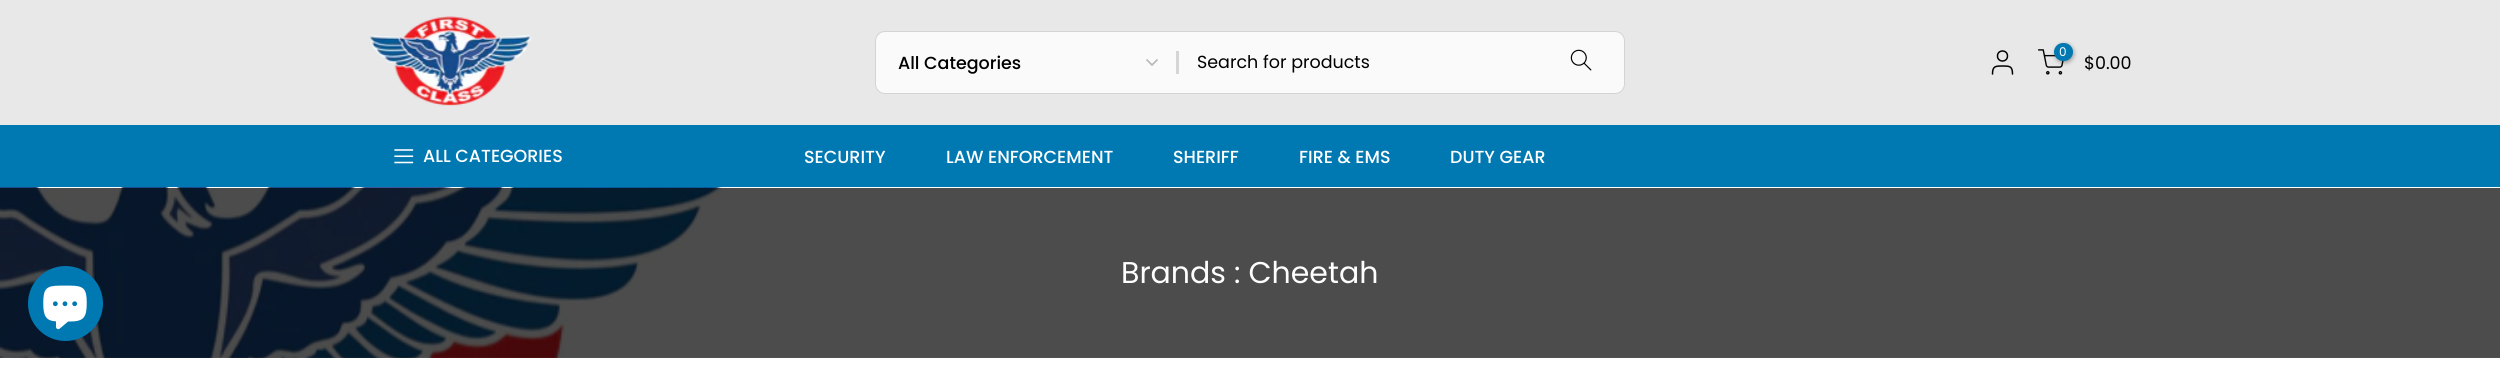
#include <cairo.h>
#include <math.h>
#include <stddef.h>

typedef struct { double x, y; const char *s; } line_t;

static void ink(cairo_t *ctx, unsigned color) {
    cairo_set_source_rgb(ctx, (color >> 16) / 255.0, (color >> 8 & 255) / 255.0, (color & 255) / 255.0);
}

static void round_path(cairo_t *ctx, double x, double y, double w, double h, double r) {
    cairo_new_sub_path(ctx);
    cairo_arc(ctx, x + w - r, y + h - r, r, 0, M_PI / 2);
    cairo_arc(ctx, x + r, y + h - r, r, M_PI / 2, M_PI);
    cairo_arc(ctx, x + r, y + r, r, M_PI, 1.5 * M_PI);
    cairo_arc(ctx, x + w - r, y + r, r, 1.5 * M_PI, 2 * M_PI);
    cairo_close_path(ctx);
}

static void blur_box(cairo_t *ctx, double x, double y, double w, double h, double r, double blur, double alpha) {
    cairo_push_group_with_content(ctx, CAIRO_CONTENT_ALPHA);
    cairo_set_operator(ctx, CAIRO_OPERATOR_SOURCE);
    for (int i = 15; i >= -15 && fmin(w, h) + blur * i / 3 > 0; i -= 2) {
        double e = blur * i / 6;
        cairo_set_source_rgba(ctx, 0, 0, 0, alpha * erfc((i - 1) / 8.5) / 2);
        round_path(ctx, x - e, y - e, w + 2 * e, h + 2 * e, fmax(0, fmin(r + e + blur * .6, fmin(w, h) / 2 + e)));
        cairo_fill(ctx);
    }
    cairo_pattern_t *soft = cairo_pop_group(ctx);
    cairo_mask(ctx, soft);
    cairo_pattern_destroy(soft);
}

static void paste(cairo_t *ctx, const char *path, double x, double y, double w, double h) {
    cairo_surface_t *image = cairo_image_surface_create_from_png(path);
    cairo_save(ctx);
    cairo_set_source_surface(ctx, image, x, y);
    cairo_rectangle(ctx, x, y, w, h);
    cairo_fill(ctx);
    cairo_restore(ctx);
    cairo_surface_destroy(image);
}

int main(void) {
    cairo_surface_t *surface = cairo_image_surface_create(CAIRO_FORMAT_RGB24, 2500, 367);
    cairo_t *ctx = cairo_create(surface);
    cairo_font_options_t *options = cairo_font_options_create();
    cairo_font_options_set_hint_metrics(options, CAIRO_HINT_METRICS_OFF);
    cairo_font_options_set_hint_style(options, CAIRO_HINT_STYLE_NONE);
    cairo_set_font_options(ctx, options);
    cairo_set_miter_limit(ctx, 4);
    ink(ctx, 0xFFFFFF);
    cairo_paint(ctx);
    ink(ctx, 0xE8E8E8);
    cairo_rectangle(ctx, 0, 0, 2500, 125);
    cairo_fill(ctx);
    paste(ctx, "media/1.png", 369, 16, 163, 90);
    ink(ctx, 0xFAFAFA);
    round_path(ctx, 875.5, 31.5, 749, 62, 9.5);
    cairo_fill_preserve(ctx);
    ink(ctx, 0xD4D4D4);
    cairo_set_line_width(ctx, 1);
    cairo_stroke(ctx);
    cairo_new_path(ctx);
    cairo_move_to(ctx, 1146.5, 59.5);
    cairo_line_to(ctx, 1152, 65);
    cairo_line_to(ctx, 1157.5, 59.5);
    ink(ctx, 0xBBBBBB);
    cairo_set_line_width(ctx, 1.8);
    cairo_stroke(ctx);
    cairo_select_font_face(ctx, "Poppins Medium", CAIRO_FONT_SLANT_NORMAL, CAIRO_FONT_WEIGHT_NORMAL);
    cairo_set_font_size(ctx, 17.5);
    ink(ctx, 0x000000);
    cairo_move_to(ctx, 898, 69);
    cairo_show_text(ctx, "All Categories");
    ink(ctx, 0xD5D5D5);
    cairo_rectangle(ctx, 1176, 51, 3, 23);
    cairo_fill(ctx);
    cairo_select_font_face(ctx, "Poppins", CAIRO_FONT_SLANT_NORMAL, CAIRO_FONT_WEIGHT_NORMAL);
    ink(ctx, 0x000000);
    cairo_move_to(ctx, 1197, 68);
    cairo_show_text(ctx, "Search for products");
    paste(ctx, "media/2.png", 1570, 49, 22, 22);
    cairo_arc(ctx, 2002.5, 56, 5, 0, 2 * M_PI);
    cairo_set_line_width(ctx, 1.5);
    cairo_stroke(ctx);
    cairo_new_path(ctx);
    cairo_move_to(ctx, 2012.5, 74);
    cairo_curve_to(ctx, 2012.5, 66, 2009.5, 66, 2002.5, 66);
    cairo_curve_to(ctx, 1995.5, 66, 1992.5, 66, 1992.5, 74);
    cairo_set_line_cap(ctx, CAIRO_LINE_CAP_ROUND);
    cairo_set_line_join(ctx, CAIRO_LINE_JOIN_ROUND);
    cairo_stroke(ctx);
    paste(ctx, "media/3.png", 2038, 49, 26, 26);
    ink(ctx, 0x000000);
    blur_box(ctx, 2055, 44, 19, 19, 9.5, 2, 0.3);
    ink(ctx, 0x0078B2);
    round_path(ctx, 2054, 43, 19, 18, 9);
    cairo_fill(ctx);
    cairo_set_font_size(ctx, 12);
    ink(ctx, 0xFFFFFF);
    cairo_move_to(ctx, 2059, 56);
    cairo_show_text(ctx, "0");
    cairo_set_font_size(ctx, 17.5);
    ink(ctx, 0x000000);
    cairo_move_to(ctx, 2084, 69);
    cairo_show_text(ctx, "$0.00");
    ink(ctx, 0x0078B2);
    cairo_rectangle(ctx, 0, 125, 2500, 62);
    cairo_fill(ctx);
    paste(ctx, "media/4.png", 394, 149, 20, 15);
    cairo_select_font_face(ctx, "Poppins Medium", CAIRO_FONT_SLANT_NORMAL, CAIRO_FONT_WEIGHT_NORMAL);
    ink(ctx, 0xFFFFFF);
    {
        static const line_t items[] = {
            {423, 162, "ALL CATEGORIES"},
            {804, 163, "SECURITY"},
            {946, 163, "LAW ENFORCEMENT"},
            {1173, 163, "SHERIFF"},
            {1299, 163, "FIRE & EMS"},
            {1450, 163, "DUTY GEAR"},
        };
        for (size_t i = 0; i < sizeof items / sizeof *items; i++) {
            cairo_move_to(ctx, items[i].x, items[i].y);
            cairo_show_text(ctx, items[i].s);
        }
    }
    paste(ctx, "media/5.png", 0, 187, 2500, 171);
    cairo_select_font_face(ctx, "Poppins", CAIRO_FONT_SLANT_NORMAL, CAIRO_FONT_WEIGHT_NORMAL);
    cairo_set_font_size(ctx, 30);
    cairo_move_to(ctx, 1121, 283);
    cairo_show_text(ctx, "Brands : Cheetah");
    ink(ctx, 0x0078B2);
    cairo_new_path(ctx);
    cairo_arc(ctx, 65.5, 303.5, 37.5, 0, 2 * M_PI);
    cairo_fill(ctx);
    paste(ctx, "media/6.png", 43, 285, 44, 45);
    cairo_surface_write_to_png(surface, "image.png");
    cairo_font_options_destroy(options);
    cairo_destroy(ctx);
    cairo_surface_destroy(surface);
    return 0;
}
